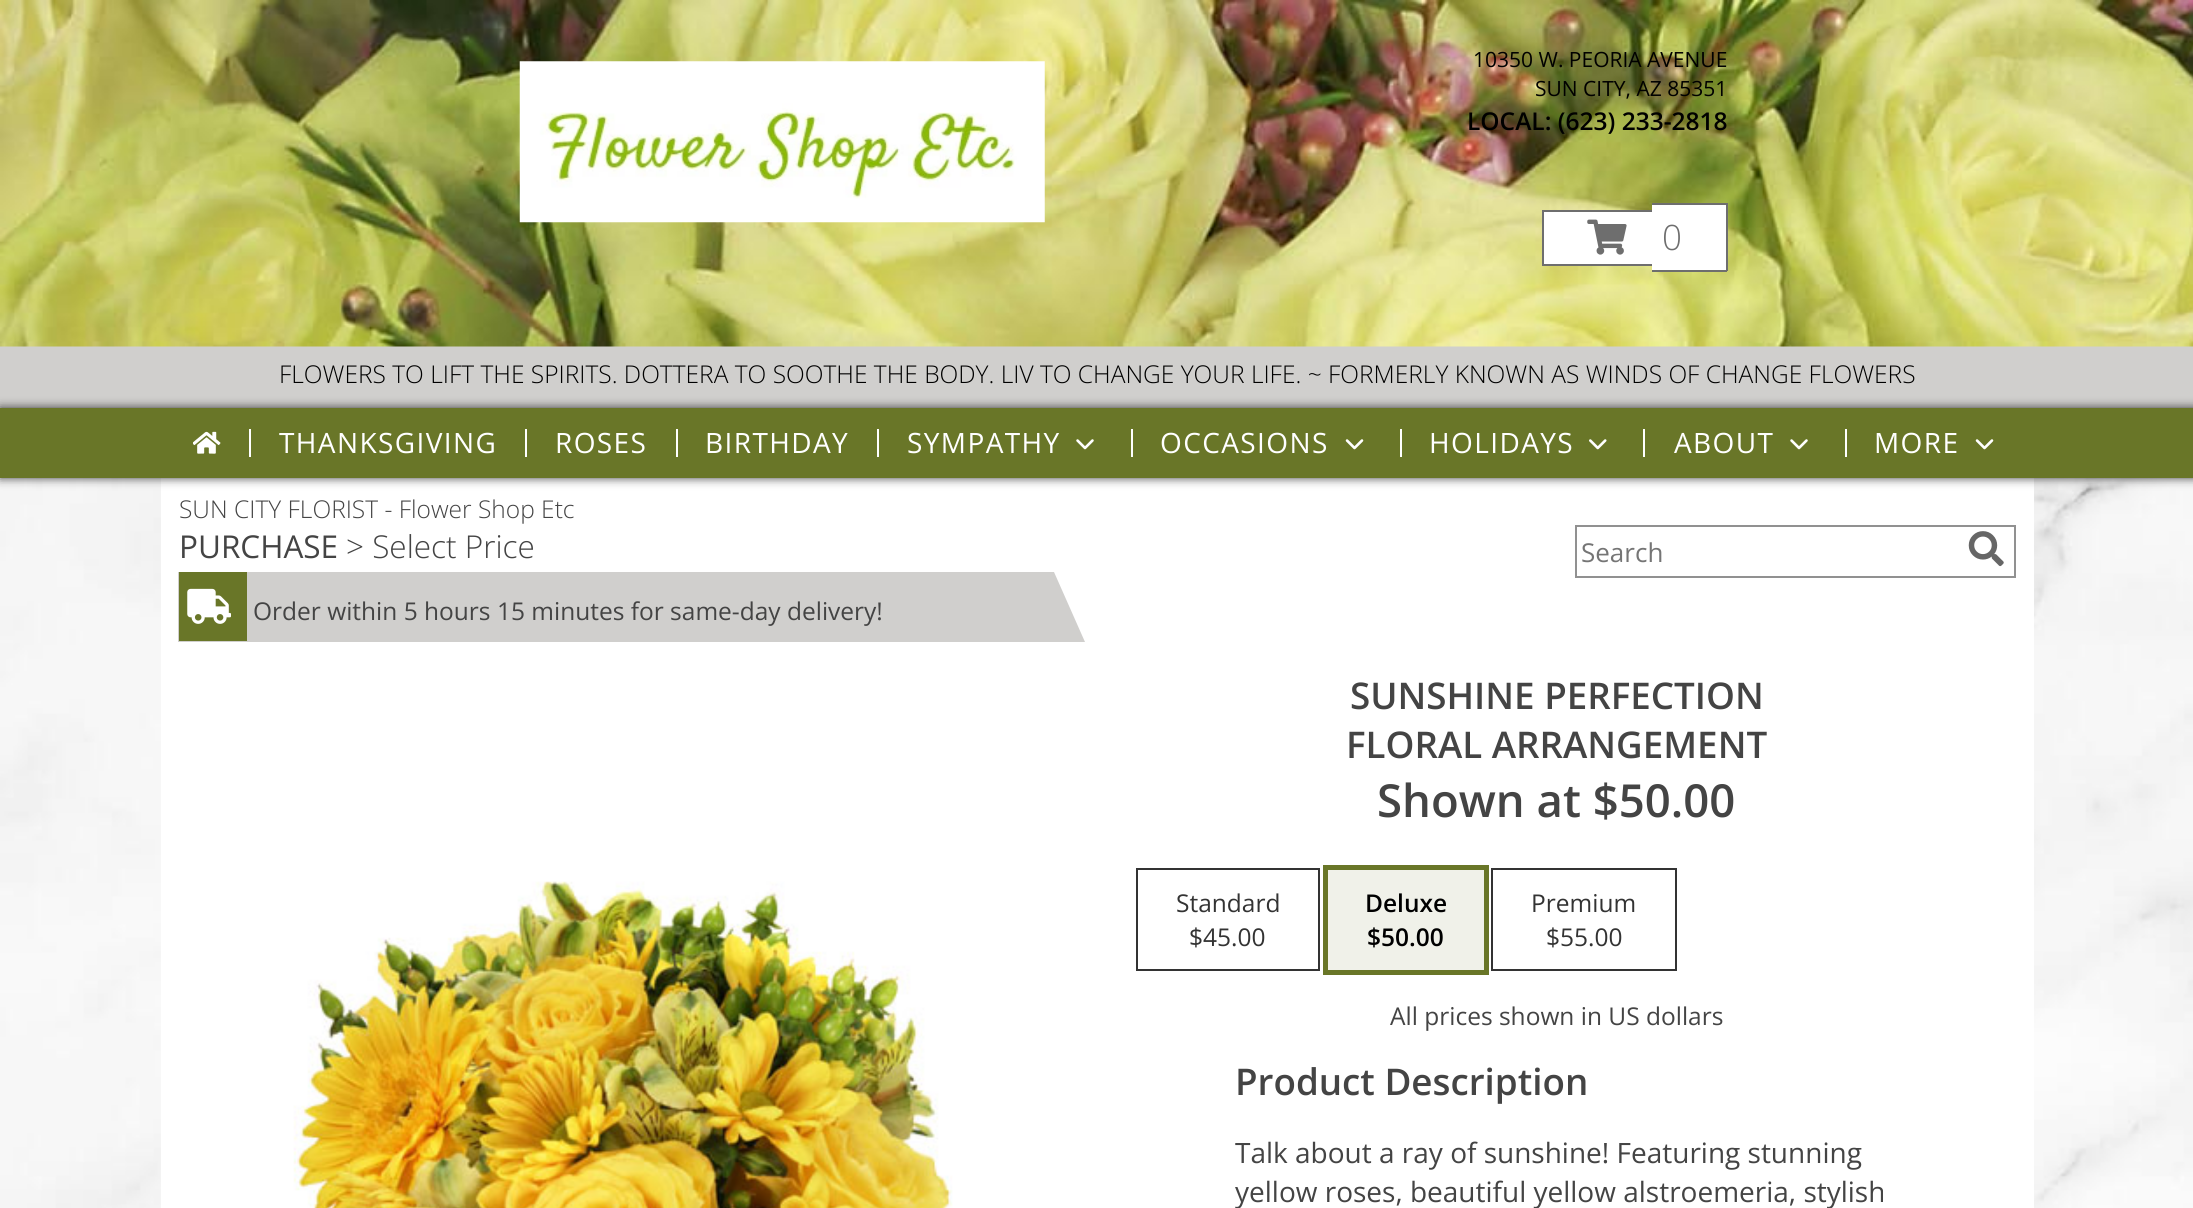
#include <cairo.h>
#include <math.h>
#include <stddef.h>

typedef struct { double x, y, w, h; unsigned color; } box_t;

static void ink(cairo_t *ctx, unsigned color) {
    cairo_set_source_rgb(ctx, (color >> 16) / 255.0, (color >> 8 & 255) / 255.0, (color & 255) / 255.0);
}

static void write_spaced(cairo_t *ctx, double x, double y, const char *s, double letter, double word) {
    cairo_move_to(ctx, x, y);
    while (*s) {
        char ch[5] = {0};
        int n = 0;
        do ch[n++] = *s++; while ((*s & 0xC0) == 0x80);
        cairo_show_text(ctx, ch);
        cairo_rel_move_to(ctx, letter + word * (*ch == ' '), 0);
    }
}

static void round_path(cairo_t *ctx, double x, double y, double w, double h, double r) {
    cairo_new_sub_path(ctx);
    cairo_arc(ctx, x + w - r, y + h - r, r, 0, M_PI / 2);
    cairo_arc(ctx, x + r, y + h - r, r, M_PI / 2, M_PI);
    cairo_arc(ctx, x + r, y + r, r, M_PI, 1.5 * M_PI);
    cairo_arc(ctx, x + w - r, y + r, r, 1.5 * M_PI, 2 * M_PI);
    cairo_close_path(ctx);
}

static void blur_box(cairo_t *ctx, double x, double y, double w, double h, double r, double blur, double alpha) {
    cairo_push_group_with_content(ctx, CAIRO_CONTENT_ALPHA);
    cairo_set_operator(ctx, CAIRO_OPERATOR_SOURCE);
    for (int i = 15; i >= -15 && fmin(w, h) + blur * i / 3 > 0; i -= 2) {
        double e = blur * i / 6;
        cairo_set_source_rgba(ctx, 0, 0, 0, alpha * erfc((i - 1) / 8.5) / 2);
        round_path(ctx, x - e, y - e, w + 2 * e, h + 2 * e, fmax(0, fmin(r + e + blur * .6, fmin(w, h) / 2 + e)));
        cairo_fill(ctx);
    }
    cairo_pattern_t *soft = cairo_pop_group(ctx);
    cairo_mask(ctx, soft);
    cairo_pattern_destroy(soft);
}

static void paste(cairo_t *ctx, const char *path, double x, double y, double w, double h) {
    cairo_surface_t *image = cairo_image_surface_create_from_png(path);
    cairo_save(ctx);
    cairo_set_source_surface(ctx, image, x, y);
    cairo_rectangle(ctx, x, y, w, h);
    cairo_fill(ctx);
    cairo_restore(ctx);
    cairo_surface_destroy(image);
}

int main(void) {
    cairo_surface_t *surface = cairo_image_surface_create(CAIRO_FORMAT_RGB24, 2193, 1208);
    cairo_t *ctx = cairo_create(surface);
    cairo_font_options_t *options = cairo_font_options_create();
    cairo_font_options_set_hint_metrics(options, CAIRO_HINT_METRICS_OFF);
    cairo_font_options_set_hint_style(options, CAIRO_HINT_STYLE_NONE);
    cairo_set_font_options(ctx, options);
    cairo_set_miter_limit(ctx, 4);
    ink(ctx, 0xFFFFFF);
    cairo_paint(ctx);
    paste(ctx, "media/1.png", 0, 478, 2193, 730);
    ink(ctx, 0xFFFFFF);
    cairo_rectangle(ctx, 161, 478, 1873, 730);
    cairo_fill(ctx);
    ink(ctx, 0xD0CFCD);
    cairo_rectangle(ctx, 0, 346, 2193, 62);
    cairo_fill(ctx);
    paste(ctx, "media/2.png", 0, 0, 2193, 347);
    paste(ctx, "media/3.png", 519, 61, 526, 162);
    cairo_select_font_face(ctx, "Open Sans", CAIRO_FONT_SLANT_NORMAL, CAIRO_FONT_WEIGHT_NORMAL);
    cairo_set_font_size(ctx, 21);
    ink(ctx, 0x000000);
    cairo_move_to(ctx, 1473, 67);
    cairo_show_text(ctx, "10350 W. PEORIA AVENUE");
    cairo_move_to(ctx, 1535, 96);
    cairo_show_text(ctx, "SUN CITY, AZ 85351");
    cairo_select_font_face(ctx, "Open Sans SemiBold", CAIRO_FONT_SLANT_NORMAL, CAIRO_FONT_WEIGHT_NORMAL);
    cairo_set_font_size(ctx, 24.5);
    cairo_move_to(ctx, 1467, 130);
    cairo_show_text(ctx, "LOCAL: (623) 233-2818");
    {
        static const box_t items[] = {
            {1544, 212, 108, 52, 0xFFFFFF},
            {1542, 210, 110, 2, 0x6E6E6E},
            {1542, 264, 110, 2, 0x6E6E6E},
            {1542, 210, 2, 56, 0x6E6E6E},
            {1652, 205, 74, 65, 0xFFFFFF},
            {1652, 203, 75, 2, 0x6E6E6E},
            {1652, 270, 11, 2, 0x6E6E6E},
            {1726, 203, 2, 68, 0x6E6E6E},
            {1663, 270, 64, 2, 0x6E6E6E},
        };
        for (size_t i = 0; i < sizeof items / sizeof *items; i++) {
            ink(ctx, items[i].color);
            cairo_rectangle(ctx, items[i].x, items[i].y, items[i].w, items[i].h);
            cairo_fill(ctx);
        }
    }
    paste(ctx, "media/4.png", 1587, 219, 40, 36);
    cairo_select_font_face(ctx, "Open Sans Light", CAIRO_FONT_SLANT_NORMAL, CAIRO_FONT_WEIGHT_NORMAL);
    cairo_set_font_size(ctx, 35);
    cairo_move_to(ctx, 1662, 250);
    cairo_show_text(ctx, "0");
    cairo_set_font_size(ctx, 24.5);
    ink(ctx, 0x000000);
    cairo_move_to(ctx, 279, 383);
    cairo_show_text(ctx, "FLOWERS TO LIFT THE SPIRITS. DOTTERA TO SOOTHE THE BODY. LIV TO CHANGE YOUR LIFE. ~ FORMERLY KNOWN AS WINDS OF CHANGE FLOWERS");
    ink(ctx, 0x000000);
    blur_box(ctx, 0, 408, 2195, 70, 0, 5, 0.75);
    ink(ctx, 0x697628);
    cairo_rectangle(ctx, 0, 408, 2193, 70);
    cairo_fill(ctx);
    paste(ctx, "media/5.png", 193, 431, 28, 23);
    ink(ctx, 0xFFFFFF);
    cairo_rectangle(ctx, 249, 429, 2, 28);
    cairo_fill(ctx);
    cairo_select_font_face(ctx, "Open Sans", CAIRO_FONT_SLANT_NORMAL, CAIRO_FONT_WEIGHT_NORMAL);
    cairo_set_font_size(ctx, 28);
    write_spaced(ctx, 279, 453, "THANKSGIVING", 1.4, 0);
    cairo_rectangle(ctx, 525, 429, 2, 28);
    cairo_fill(ctx);
    write_spaced(ctx, 555, 453, "ROSES", 1.4, 0);
    cairo_rectangle(ctx, 676, 429, 2, 28);
    cairo_fill(ctx);
    write_spaced(ctx, 705, 453, "BIRTHDAY", 1.4, 0);
    cairo_rectangle(ctx, 877, 429, 2, 28);
    cairo_fill(ctx);
    write_spaced(ctx, 907, 453, "SYMPATHY", 1.4, 0);
    paste(ctx, "media/6.png", 1076, 439, 18, 11);
    cairo_rectangle(ctx, 1131, 429, 2, 28);
    cairo_fill(ctx);
    write_spaced(ctx, 1160, 453, "OCCASIONS", 1.4, 0);
    paste(ctx, "media/7.png", 1345, 439, 19, 11);
    cairo_rectangle(ctx, 1400, 429, 2, 28);
    cairo_fill(ctx);
    write_spaced(ctx, 1429, 453, "HOLIDAYS", 1.4, 0);
    paste(ctx, "media/8.png", 1589, 439, 18, 11);
    cairo_rectangle(ctx, 1643, 429, 2, 28);
    cairo_fill(ctx);
    write_spaced(ctx, 1674, 453, "ABOUT", 1.4, 0);
    paste(ctx, "media/6.png", 1790, 439, 18, 11);
    cairo_rectangle(ctx, 1845, 429, 2, 28);
    cairo_fill(ctx);
    write_spaced(ctx, 1874, 453, "MORE", 1.4, 0);
    paste(ctx, "media/7.png", 1975, 439, 19, 11);
    cairo_select_font_face(ctx, "Open Sans Light", CAIRO_FONT_SLANT_NORMAL, CAIRO_FONT_WEIGHT_NORMAL);
    cairo_set_font_size(ctx, 24.5);
    ink(ctx, 0x444444);
    cairo_move_to(ctx, 179, 518);
    cairo_show_text(ctx, "SUN CITY FLORIST - Flower Shop Etc");
    cairo_select_font_face(ctx, "Open Sans", CAIRO_FONT_SLANT_NORMAL, CAIRO_FONT_WEIGHT_NORMAL);
    cairo_set_font_size(ctx, 31.5);
    cairo_move_to(ctx, 179, 558);
    cairo_show_text(ctx, "PURCHASE");
    cairo_select_font_face(ctx, "Open Sans Light", CAIRO_FONT_SLANT_NORMAL, CAIRO_FONT_WEIGHT_NORMAL);
    cairo_move_to(ctx, 346, 558);
    cairo_show_text(ctx, "> Select Price");
    cairo_rectangle(ctx, 1576, 526, 439, 51);
    ink(ctx, 0x919191);
    cairo_stroke(ctx);
    cairo_select_font_face(ctx, "Open Sans", CAIRO_FONT_SLANT_NORMAL, CAIRO_FONT_WEIGHT_NORMAL);
    cairo_set_font_size(ctx, 26);
    ink(ctx, 0x757575);
    cairo_move_to(ctx, 1581, 562);
    cairo_show_text(ctx, "Search");
    paste(ctx, "media/9.png", 1968, 531, 36, 36);
    ink(ctx, 0xD0CFCD);
    cairo_new_path(ctx);
    cairo_move_to(ctx, 1085, 642);
    cairo_line_to(ctx, 178, 642);
    cairo_line_to(ctx, 178, 572);
    cairo_line_to(ctx, 1054, 572);
    cairo_close_path(ctx);
    cairo_fill(ctx);
    ink(ctx, 0x697628);
    cairo_rectangle(ctx, 179, 572, 68, 69);
    cairo_fill(ctx);
    paste(ctx, "media/10.png", 187, 588, 44, 36);
    cairo_set_font_size(ctx, 24.5);
    ink(ctx, 0x444444);
    cairo_move_to(ctx, 253, 620);
    cairo_show_text(ctx, "Order within 5 hours 15 minutes for same-day delivery!");
    paste(ctx, "media/11.png", 293, 881, 660, 327);
    cairo_select_font_face(ctx, "Open Sans SemiBold", CAIRO_FONT_SLANT_NORMAL, CAIRO_FONT_WEIGHT_NORMAL);
    cairo_set_font_size(ctx, 36.75);
    cairo_move_to(ctx, 1350, 709);
    cairo_show_text(ctx, "SUNSHINE PERFECTION");
    cairo_move_to(ctx, 1346, 758);
    cairo_show_text(ctx, "FLORAL ARRANGEMENT");
    cairo_set_font_size(ctx, 45.5);
    cairo_move_to(ctx, 1377, 817);
    cairo_show_text(ctx, "Shown at $50.00");
    cairo_rectangle(ctx, 1137, 869, 182, 101);
    ink(ctx, 0x333333);
    cairo_stroke(ctx);
    cairo_select_font_face(ctx, "Open Sans", CAIRO_FONT_SLANT_NORMAL, CAIRO_FONT_WEIGHT_NORMAL);
    cairo_set_font_size(ctx, 24.5);
    cairo_move_to(ctx, 1176, 912);
    cairo_show_text(ctx, "Standard");
    cairo_move_to(ctx, 1189, 946);
    cairo_show_text(ctx, "$45.00");
    cairo_rectangle(ctx, 1325.5, 867.5, 161, 105);
    ink(ctx, 0x697628);
    cairo_set_line_width(ctx, 5);
    cairo_stroke(ctx);
    ink(ctx, 0xF0F1E9);
    cairo_rectangle(ctx, 1328, 870, 156, 100);
    cairo_fill(ctx);
    cairo_select_font_face(ctx, "Open Sans SemiBold", CAIRO_FONT_SLANT_NORMAL, CAIRO_FONT_WEIGHT_NORMAL);
    ink(ctx, 0x000000);
    cairo_move_to(ctx, 1365, 912);
    cairo_show_text(ctx, "Deluxe");
    cairo_move_to(ctx, 1367, 946);
    cairo_show_text(ctx, "$50.00");
    cairo_rectangle(ctx, 1492, 869, 184, 101);
    ink(ctx, 0x333333);
    cairo_set_line_width(ctx, 2);
    cairo_stroke(ctx);
    cairo_select_font_face(ctx, "Open Sans", CAIRO_FONT_SLANT_NORMAL, CAIRO_FONT_WEIGHT_NORMAL);
    cairo_move_to(ctx, 1531, 912);
    cairo_show_text(ctx, "Premium");
    cairo_move_to(ctx, 1546, 946);
    cairo_show_text(ctx, "$55.00");
    ink(ctx, 0x444444);
    cairo_move_to(ctx, 1390, 1025);
    cairo_show_text(ctx, "All prices shown in US dollars");
    cairo_select_font_face(ctx, "Open Sans SemiBold", CAIRO_FONT_SLANT_NORMAL, CAIRO_FONT_WEIGHT_NORMAL);
    cairo_set_font_size(ctx, 36.75);
    cairo_move_to(ctx, 1235, 1095);
    cairo_show_text(ctx, "Product Description");
    cairo_select_font_face(ctx, "Open Sans", CAIRO_FONT_SLANT_NORMAL, CAIRO_FONT_WEIGHT_NORMAL);
    cairo_set_font_size(ctx, 28);
    cairo_move_to(ctx, 1235, 1163);
    cairo_show_text(ctx, "Talk about a ray of sunshine! Featuring stunning");
    cairo_move_to(ctx, 1235, 1202);
    cairo_show_text(ctx, "yellow roses, beautiful yellow alstroemeria, stylish");
    cairo_surface_write_to_png(surface, "image.png");
    cairo_font_options_destroy(options);
    cairo_destroy(ctx);
    cairo_surface_destroy(surface);
    return 0;
}
